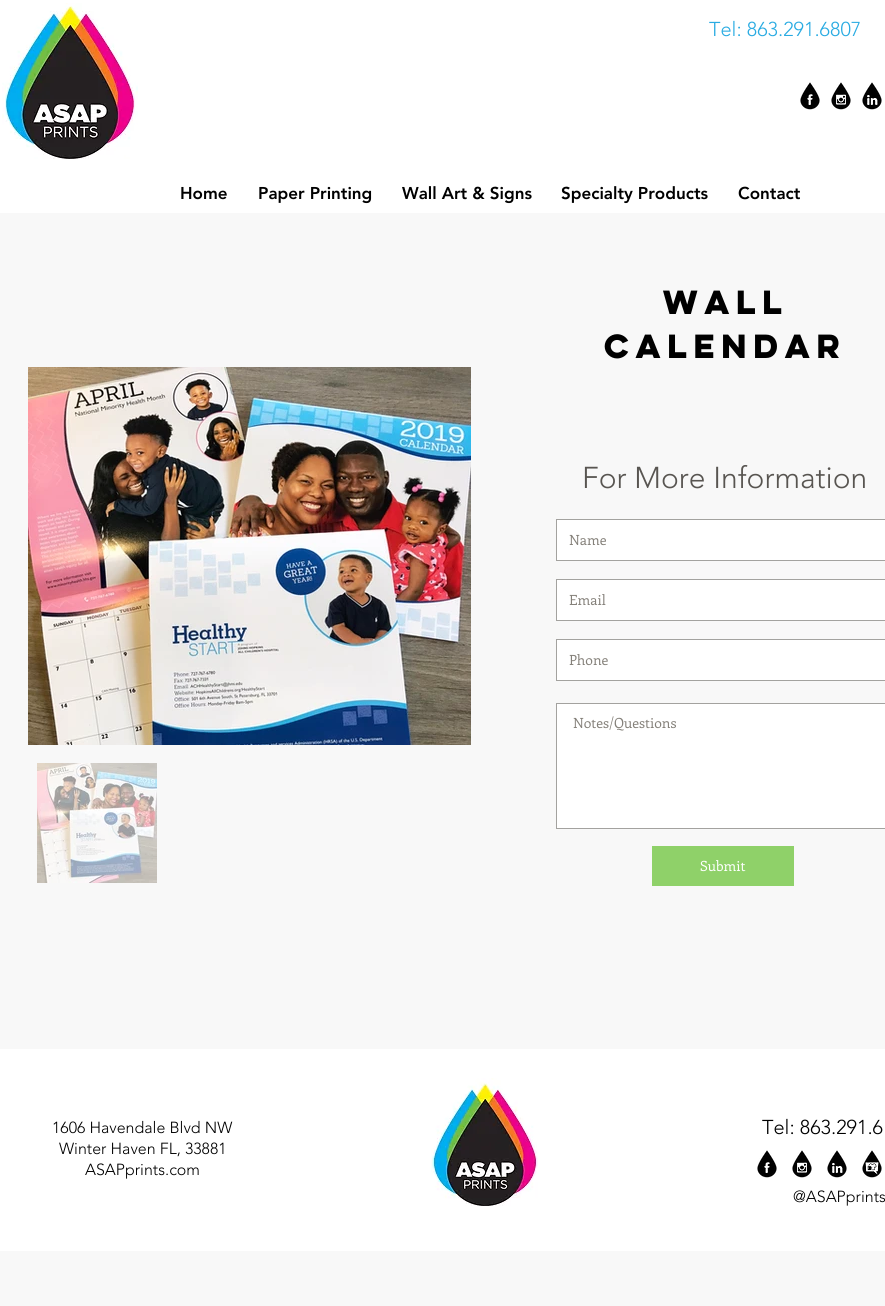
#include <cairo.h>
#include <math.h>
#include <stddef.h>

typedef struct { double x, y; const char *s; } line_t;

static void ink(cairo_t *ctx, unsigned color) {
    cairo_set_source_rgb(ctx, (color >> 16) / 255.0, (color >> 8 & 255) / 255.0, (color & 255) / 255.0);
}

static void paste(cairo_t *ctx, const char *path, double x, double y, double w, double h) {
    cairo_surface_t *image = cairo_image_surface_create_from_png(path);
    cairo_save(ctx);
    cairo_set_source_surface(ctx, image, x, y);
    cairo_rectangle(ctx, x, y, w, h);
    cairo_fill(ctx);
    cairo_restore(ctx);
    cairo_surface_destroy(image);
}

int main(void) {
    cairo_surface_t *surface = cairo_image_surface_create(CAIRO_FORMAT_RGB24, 885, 1306);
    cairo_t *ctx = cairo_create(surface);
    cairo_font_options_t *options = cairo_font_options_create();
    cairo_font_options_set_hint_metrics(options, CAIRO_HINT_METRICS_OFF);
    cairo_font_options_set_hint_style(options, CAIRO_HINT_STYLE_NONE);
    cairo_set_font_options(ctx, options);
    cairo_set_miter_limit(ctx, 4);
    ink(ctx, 0xF8F8F8);
    cairo_paint(ctx);
    ink(ctx, 0xFFFFFF);
    cairo_rectangle(ctx, 0, 0, 885, 213);
    cairo_fill(ctx);
    paste(ctx, "media/1.png", 2, 3, 136, 156);
    cairo_select_font_face(ctx, "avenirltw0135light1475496 Light", CAIRO_FONT_SLANT_NORMAL, CAIRO_FONT_WEIGHT_NORMAL);
    cairo_set_font_size(ctx, 20);
    ink(ctx, 0x29ABE2);
    cairo_move_to(ctx, 709, 36);
    cairo_show_text(ctx, "Tel: 863.291.6807");
    paste(ctx, "media/2.png", 800, 82, 20, 28);
    paste(ctx, "media/3.png", 831, 82, 20, 28);
    paste(ctx, "media/4.png", 862, 82, 20, 28);
    cairo_select_font_face(ctx, "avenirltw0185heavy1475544 Black", CAIRO_FONT_SLANT_NORMAL, CAIRO_FONT_WEIGHT_NORMAL);
    cairo_set_font_size(ctx, 17);
    ink(ctx, 0x000000);
    {
        static const line_t items[] = {
            {180, 199, "Home"},
            {258, 199, "Paper Printing"},
            {402, 199, "Wall Art & Signs"},
            {561, 199, "Specialty Products"},
            {738, 199, "Contact"},
        };
        for (size_t i = 0; i < sizeof items / sizeof *items; i++) {
            cairo_move_to(ctx, items[i].x, items[i].y);
            cairo_show_text(ctx, items[i].s);
        }
    }
    cairo_select_font_face(ctx, "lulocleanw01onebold", CAIRO_FONT_SLANT_NORMAL, CAIRO_FONT_WEIGHT_BOLD);
    cairo_set_font_size(ctx, 30);
    cairo_move_to(ctx, 663, 314);
    cairo_show_text(ctx, "Wall");
    cairo_move_to(ctx, 604, 358);
    cairo_show_text(ctx, "Calendar");
    paste(ctx, "media/5.png", 28, 367, 443, 378);
    paste(ctx, "media/6.png", 37, 763, 120, 120);
    cairo_select_font_face(ctx, "avenirltw0135light1475496 Light", CAIRO_FONT_SLANT_NORMAL, CAIRO_FONT_WEIGHT_NORMAL);
    ink(ctx, 0x585551);
    cairo_move_to(ctx, 582, 488);
    cairo_show_text(ctx, "For More Information");
    ink(ctx, 0xFFFFFF);
    cairo_rectangle(ctx, 556.5, 519.5, 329, 41);
    cairo_fill_preserve(ctx);
    ink(ctx, 0xA3A29F);
    cairo_set_line_width(ctx, 1);
    cairo_stroke(ctx);
    cairo_select_font_face(ctx, "Enriqueta", CAIRO_FONT_SLANT_NORMAL, CAIRO_FONT_WEIGHT_NORMAL);
    cairo_set_font_size(ctx, 14);
    ink(ctx, 0x848079);
    cairo_move_to(ctx, 569, 545);
    cairo_show_text(ctx, "Name");
    ink(ctx, 0xFFFFFF);
    cairo_rectangle(ctx, 556.5, 579.5, 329, 41);
    cairo_fill_preserve(ctx);
    ink(ctx, 0xA3A29F);
    cairo_stroke(ctx);
    ink(ctx, 0x848079);
    cairo_move_to(ctx, 569, 605);
    cairo_show_text(ctx, "Email");
    ink(ctx, 0xFFFFFF);
    cairo_rectangle(ctx, 556.5, 639.5, 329, 41);
    cairo_fill_preserve(ctx);
    ink(ctx, 0xA3A29F);
    cairo_stroke(ctx);
    ink(ctx, 0x848079);
    cairo_move_to(ctx, 569, 665);
    cairo_show_text(ctx, "Phone");
    ink(ctx, 0xFFFFFF);
    cairo_rectangle(ctx, 556.5, 703.5, 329, 125);
    cairo_fill_preserve(ctx);
    ink(ctx, 0xA3A29F);
    cairo_stroke(ctx);
    ink(ctx, 0x848079);
    cairo_move_to(ctx, 573, 728);
    cairo_show_text(ctx, "Notes/Questions");
    ink(ctx, 0x8FD169);
    cairo_rectangle(ctx, 652, 846, 142, 40);
    cairo_fill(ctx);
    ink(ctx, 0xFFFFFF);
    cairo_move_to(ctx, 700, 871);
    cairo_show_text(ctx, "Submit");
    cairo_rectangle(ctx, 0, 1049, 885, 202);
    cairo_fill(ctx);
    cairo_select_font_face(ctx, "avenirltw0135light1475496 Light", CAIRO_FONT_SLANT_NORMAL, CAIRO_FONT_WEIGHT_NORMAL);
    cairo_set_font_size(ctx, 16);
    ink(ctx, 0x000000);
    {
        static const line_t items[] = {
            {52, 1133, "1606 Havendale Blvd NW"},
            {59, 1154, "Winter Haven FL, 33881"},
            {85, 1175, "ASAPprints.com"},
        };
        for (size_t i = 0; i < sizeof items / sizeof *items; i++) {
            cairo_move_to(ctx, items[i].x, items[i].y);
            cairo_show_text(ctx, items[i].s);
        }
    }
    paste(ctx, "media/7.png", 431, 1078, 107, 128);
    cairo_set_font_size(ctx, 20);
    cairo_move_to(ctx, 762, 1134);
    cairo_show_text(ctx, "Tel: 863.291.6");
    paste(ctx, "media/2.png", 757, 1150, 20, 28);
    paste(ctx, "media/3.png", 792, 1150, 20, 28);
    paste(ctx, "media/4.png", 827, 1150, 20, 28);
    paste(ctx, "media/8.png", 862, 1150, 20, 28);
    cairo_set_font_size(ctx, 16);
    cairo_move_to(ctx, 793, 1202);
    cairo_show_text(ctx, "@ASAPprints");
    cairo_surface_write_to_png(surface, "image.png");
    cairo_font_options_destroy(options);
    cairo_destroy(ctx);
    cairo_surface_destroy(surface);
    return 0;
}
